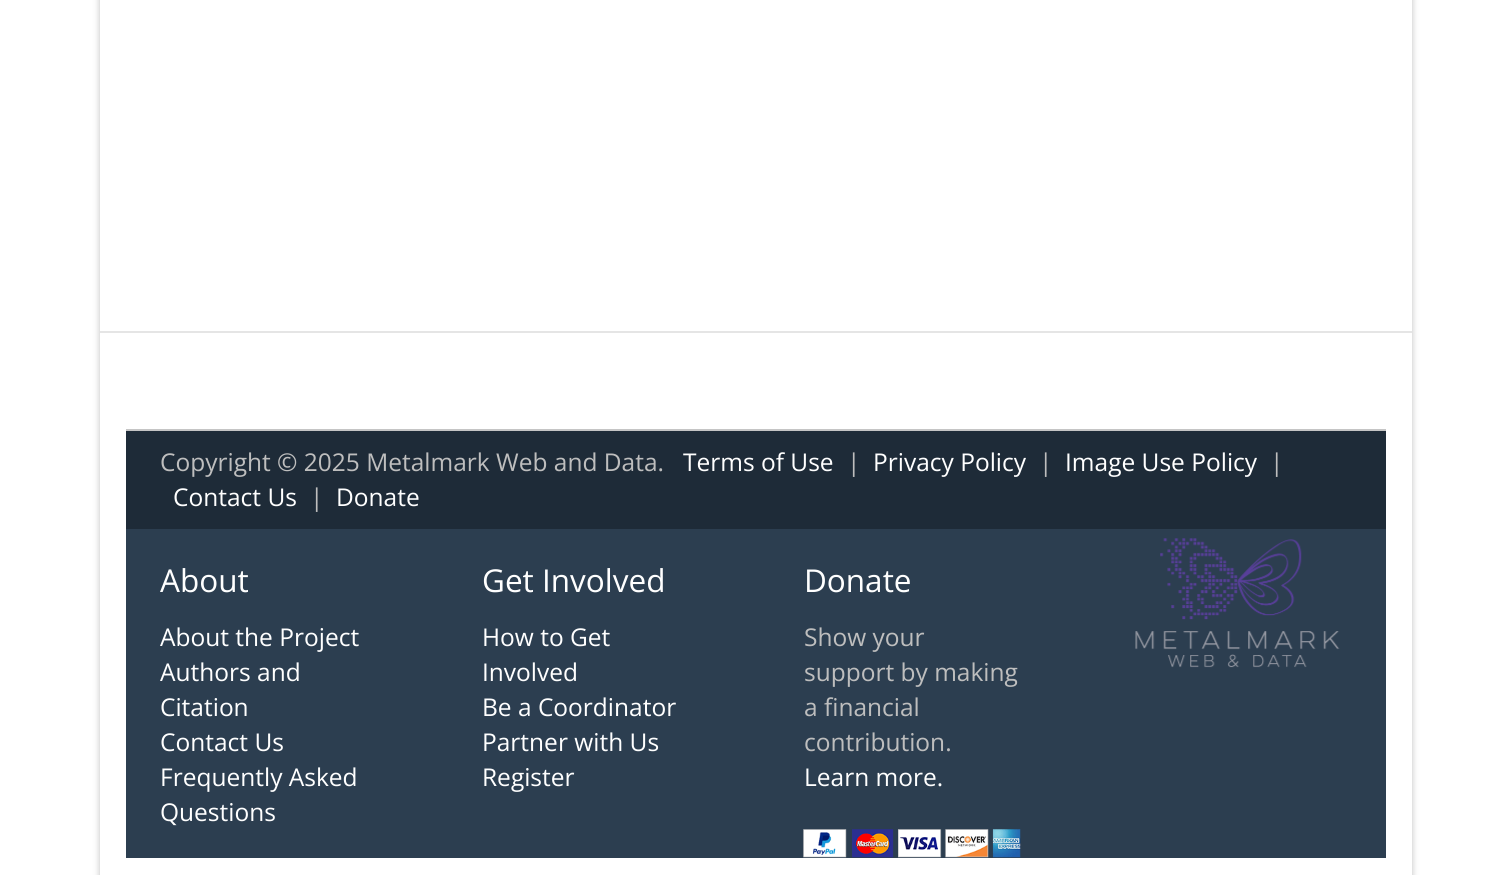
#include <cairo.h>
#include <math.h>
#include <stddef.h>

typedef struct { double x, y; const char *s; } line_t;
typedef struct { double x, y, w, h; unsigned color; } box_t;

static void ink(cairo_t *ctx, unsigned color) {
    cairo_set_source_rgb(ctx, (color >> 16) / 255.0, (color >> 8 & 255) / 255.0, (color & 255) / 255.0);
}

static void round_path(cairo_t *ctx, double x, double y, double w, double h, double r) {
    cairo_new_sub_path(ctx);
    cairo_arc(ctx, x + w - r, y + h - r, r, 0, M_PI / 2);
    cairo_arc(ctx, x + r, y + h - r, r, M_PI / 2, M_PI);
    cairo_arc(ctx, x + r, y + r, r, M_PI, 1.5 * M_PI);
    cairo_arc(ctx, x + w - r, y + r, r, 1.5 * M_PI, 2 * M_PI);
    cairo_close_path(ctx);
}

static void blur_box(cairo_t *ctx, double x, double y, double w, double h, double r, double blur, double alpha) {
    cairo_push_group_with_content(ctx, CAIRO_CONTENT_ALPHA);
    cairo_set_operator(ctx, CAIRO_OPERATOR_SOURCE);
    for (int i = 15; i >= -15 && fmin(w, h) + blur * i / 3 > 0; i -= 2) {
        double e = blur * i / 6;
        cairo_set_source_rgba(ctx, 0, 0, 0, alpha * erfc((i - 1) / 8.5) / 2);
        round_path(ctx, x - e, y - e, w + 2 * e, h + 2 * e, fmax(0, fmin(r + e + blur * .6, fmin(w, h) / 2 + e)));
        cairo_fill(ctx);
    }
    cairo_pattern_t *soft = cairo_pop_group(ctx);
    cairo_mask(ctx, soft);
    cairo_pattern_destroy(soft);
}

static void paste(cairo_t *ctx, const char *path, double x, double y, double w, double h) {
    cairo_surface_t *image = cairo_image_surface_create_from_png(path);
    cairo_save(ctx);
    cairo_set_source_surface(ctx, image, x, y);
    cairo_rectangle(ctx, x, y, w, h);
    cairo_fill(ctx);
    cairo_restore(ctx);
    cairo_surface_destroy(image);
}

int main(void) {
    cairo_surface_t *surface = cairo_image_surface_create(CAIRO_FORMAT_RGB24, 1510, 875);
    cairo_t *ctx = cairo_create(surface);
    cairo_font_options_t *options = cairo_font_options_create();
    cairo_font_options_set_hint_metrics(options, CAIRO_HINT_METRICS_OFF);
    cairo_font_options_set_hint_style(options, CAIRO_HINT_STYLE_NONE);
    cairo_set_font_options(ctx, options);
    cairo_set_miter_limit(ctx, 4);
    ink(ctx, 0xFFFFFF);
    cairo_paint(ctx);
    cairo_save(ctx);
    cairo_set_fill_rule(ctx, CAIRO_FILL_RULE_EVEN_ODD);
    cairo_new_path(ctx);
    cairo_move_to(ctx, 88, 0);
    cairo_line_to(ctx, 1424, 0);
    cairo_line_to(ctx, 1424, 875);
    cairo_line_to(ctx, 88, 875);
    cairo_close_path(ctx);
    cairo_move_to(ctx, 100, -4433);
    cairo_line_to(ctx, 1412, -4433);
    cairo_line_to(ctx, 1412, 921);
    cairo_line_to(ctx, 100, 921);
    cairo_close_path(ctx);
    cairo_clip(ctx);
    ink(ctx, 0x000000);
    blur_box(ctx, 100, -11, 1312, 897, 0, 3.5, 0.25);
    cairo_restore(ctx);
    {
        static const box_t items[] = {
            {100, 331, 1312, 2, 0xE5E5E5},
            {126, 529, 1260, 329, 0x2C3E50},
            {126, 429, 1260, 2, 0xC5C5C5},
            {126, 431, 1260, 98, 0x1E2B38},
        };
        for (size_t i = 0; i < sizeof items / sizeof *items; i++) {
            ink(ctx, items[i].color);
            cairo_rectangle(ctx, items[i].x, items[i].y, items[i].w, items[i].h);
            cairo_fill(ctx);
        }
    }
    cairo_select_font_face(ctx, "Open Sans", CAIRO_FONT_SLANT_NORMAL, CAIRO_FONT_WEIGHT_NORMAL);
    cairo_set_font_size(ctx, 24.5);
    ink(ctx, 0xBEBEBE);
    cairo_move_to(ctx, 160, 471);
    cairo_show_text(ctx, "Copyright © 2025 Metalmark Web and Data.");
    ink(ctx, 0xFFFFFF);
    cairo_move_to(ctx, 683, 471);
    cairo_show_text(ctx, "Terms of Use");
    ink(ctx, 0xBEBEBE);
    cairo_move_to(ctx, 847, 471);
    cairo_show_text(ctx, "|");
    ink(ctx, 0xFFFFFF);
    cairo_move_to(ctx, 873, 471);
    cairo_show_text(ctx, "Privacy Policy");
    ink(ctx, 0xBEBEBE);
    cairo_move_to(ctx, 1039, 471);
    cairo_show_text(ctx, "|");
    ink(ctx, 0xFFFFFF);
    cairo_move_to(ctx, 1065, 471);
    cairo_show_text(ctx, "Image Use Policy");
    ink(ctx, 0xBEBEBE);
    cairo_move_to(ctx, 1270, 471);
    cairo_show_text(ctx, "|");
    ink(ctx, 0xFFFFFF);
    cairo_move_to(ctx, 173, 506);
    cairo_show_text(ctx, "Contact Us");
    ink(ctx, 0xBEBEBE);
    cairo_move_to(ctx, 310, 506);
    cairo_show_text(ctx, "|");
    ink(ctx, 0xFFFFFF);
    cairo_move_to(ctx, 336, 506);
    cairo_show_text(ctx, "Donate");
    cairo_set_font_size(ctx, 31.5);
    cairo_move_to(ctx, 160, 592);
    cairo_show_text(ctx, "About");
    cairo_set_font_size(ctx, 24.5);
    {
        static const line_t items[] = {
            {160, 646, "About the Project"},
            {160, 681, "Authors and"},
            {160, 716, "Citation"},
            {160, 751, "Contact Us"},
            {160, 786, "Frequently Asked"},
            {160, 821, "Questions"},
        };
        for (size_t i = 0; i < sizeof items / sizeof *items; i++) {
            cairo_move_to(ctx, items[i].x, items[i].y);
            cairo_show_text(ctx, items[i].s);
        }
    }
    cairo_set_font_size(ctx, 31.5);
    cairo_move_to(ctx, 482, 592);
    cairo_show_text(ctx, "Get Involved");
    cairo_set_font_size(ctx, 24.5);
    {
        static const line_t items[] = {
            {482, 646, "How to Get"},
            {482, 681, "Involved"},
            {482, 716, "Be a Coordinator"},
            {482, 751, "Partner with Us"},
            {482, 786, "Register"},
        };
        for (size_t i = 0; i < sizeof items / sizeof *items; i++) {
            cairo_move_to(ctx, items[i].x, items[i].y);
            cairo_show_text(ctx, items[i].s);
        }
    }
    cairo_set_font_size(ctx, 31.5);
    cairo_move_to(ctx, 804, 592);
    cairo_show_text(ctx, "Donate");
    cairo_set_font_size(ctx, 24.5);
    ink(ctx, 0xBEBEBE);
    {
        static const line_t items[] = {
            {804, 646, "Show your"},
            {804, 681, "support by making"},
            {804, 716, "a financial"},
            {804, 751, "contribution."},
        };
        for (size_t i = 0; i < sizeof items / sizeof *items; i++) {
            cairo_move_to(ctx, items[i].x, items[i].y);
            cairo_show_text(ctx, items[i].s);
        }
    }
    ink(ctx, 0xFFFFFF);
    cairo_move_to(ctx, 804, 786);
    cairo_show_text(ctx, "Learn more.");
    paste(ctx, "media/1.png", 803, 829, 218, 29);
    paste(ctx, "media/2.png", 1135, 538, 205, 130);
    cairo_surface_write_to_png(surface, "image.png");
    cairo_font_options_destroy(options);
    cairo_destroy(ctx);
    cairo_surface_destroy(surface);
    return 0;
}
